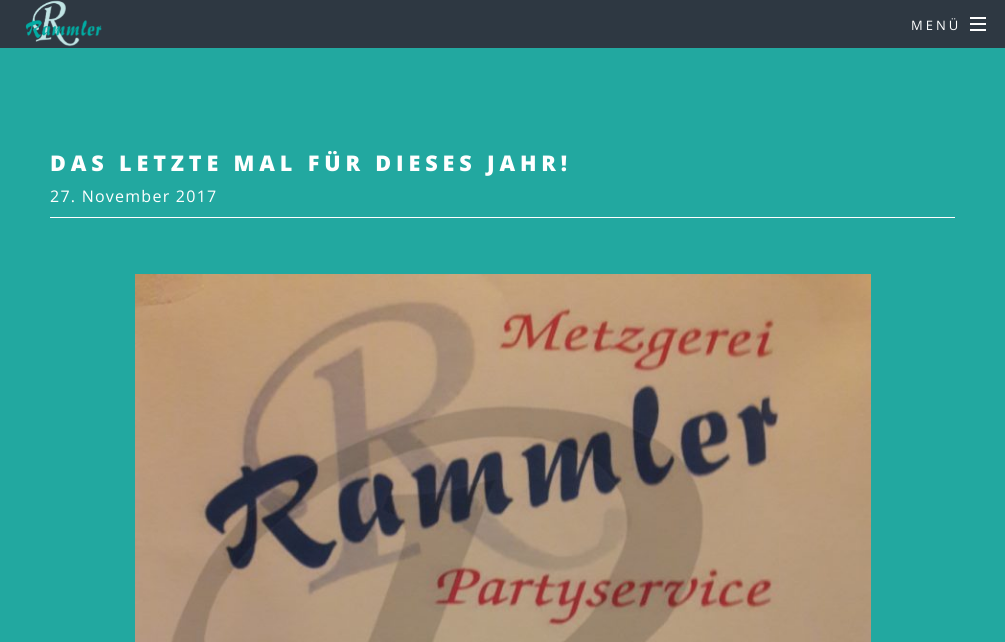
#include <cairo.h>
#include <math.h>
#include <stddef.h>

typedef struct { double x, y, w, h; unsigned color; } box_t;

static void ink(cairo_t *ctx, unsigned color) {
    cairo_set_source_rgb(ctx, (color >> 16) / 255.0, (color >> 8 & 255) / 255.0, (color & 255) / 255.0);
}

static void write_spaced(cairo_t *ctx, double x, double y, const char *s, double letter, double word) {
    cairo_move_to(ctx, x, y);
    while (*s) {
        char ch[5] = {0};
        int n = 0;
        do ch[n++] = *s++; while ((*s & 0xC0) == 0x80);
        cairo_show_text(ctx, ch);
        cairo_rel_move_to(ctx, letter + word * (*ch == ' '), 0);
    }
}

static void paste(cairo_t *ctx, const char *path, double x, double y, double w, double h) {
    cairo_surface_t *image = cairo_image_surface_create_from_png(path);
    cairo_save(ctx);
    cairo_set_source_surface(ctx, image, x, y);
    cairo_rectangle(ctx, x, y, w, h);
    cairo_fill(ctx);
    cairo_restore(ctx);
    cairo_surface_destroy(image);
}

int main(void) {
    cairo_surface_t *surface = cairo_image_surface_create(CAIRO_FORMAT_RGB24, 1005, 642);
    cairo_t *ctx = cairo_create(surface);
    cairo_font_options_t *options = cairo_font_options_create();
    cairo_font_options_set_hint_metrics(options, CAIRO_HINT_METRICS_OFF);
    cairo_font_options_set_hint_style(options, CAIRO_HINT_STYLE_NONE);
    cairo_set_font_options(ctx, options);
    cairo_set_miter_limit(ctx, 4);
    ink(ctx, 0x2E3842);
    cairo_paint(ctx);
    paste(ctx, "media/1.png", 25, 0, 77, 47);
    cairo_select_font_face(ctx, "Open Sans", CAIRO_FONT_SLANT_NORMAL, CAIRO_FONT_WEIGHT_NORMAL);
    cairo_set_font_size(ctx, 13);
    ink(ctx, 0xFFFFFF);
    write_spaced(ctx, 911, 30, "MENÜ", 3, 0);
    {
        static const box_t items[] = {
            {970, 17, 16, 2, 0xFFFFFF},
            {970, 23, 16, 2, 0xFFFFFF},
            {970, 29, 16, 2, 0xFFFFFF},
            {0, 48, 1005, 594, 0x22A8A0},
            {50, 217, 905, 1, 0xFFFFFF},
        };
        for (size_t i = 0; i < sizeof items / sizeof *items; i++) {
            ink(ctx, items[i].color);
            cairo_rectangle(ctx, items[i].x, items[i].y, items[i].w, items[i].h);
            cairo_fill(ctx);
        }
    }
    cairo_select_font_face(ctx, "Open Sans ExtraBold", CAIRO_FONT_SLANT_NORMAL, CAIRO_FONT_WEIGHT_NORMAL);
    cairo_set_font_size(ctx, 21.6);
    write_spaced(ctx, 50, 171, "DAS LETZTE MAL FÜR DIESES JAHR!", 4.85, 0);
    cairo_select_font_face(ctx, "Open Sans", CAIRO_FONT_SLANT_NORMAL, CAIRO_FONT_WEIGHT_NORMAL);
    cairo_set_font_size(ctx, 16);
    write_spaced(ctx, 50, 202, "27. November 2017", 1.25, 0);
    paste(ctx, "media/2.png", 135, 274, 736, 368);
    cairo_surface_write_to_png(surface, "image.png");
    cairo_font_options_destroy(options);
    cairo_destroy(ctx);
    cairo_surface_destroy(surface);
    return 0;
}
